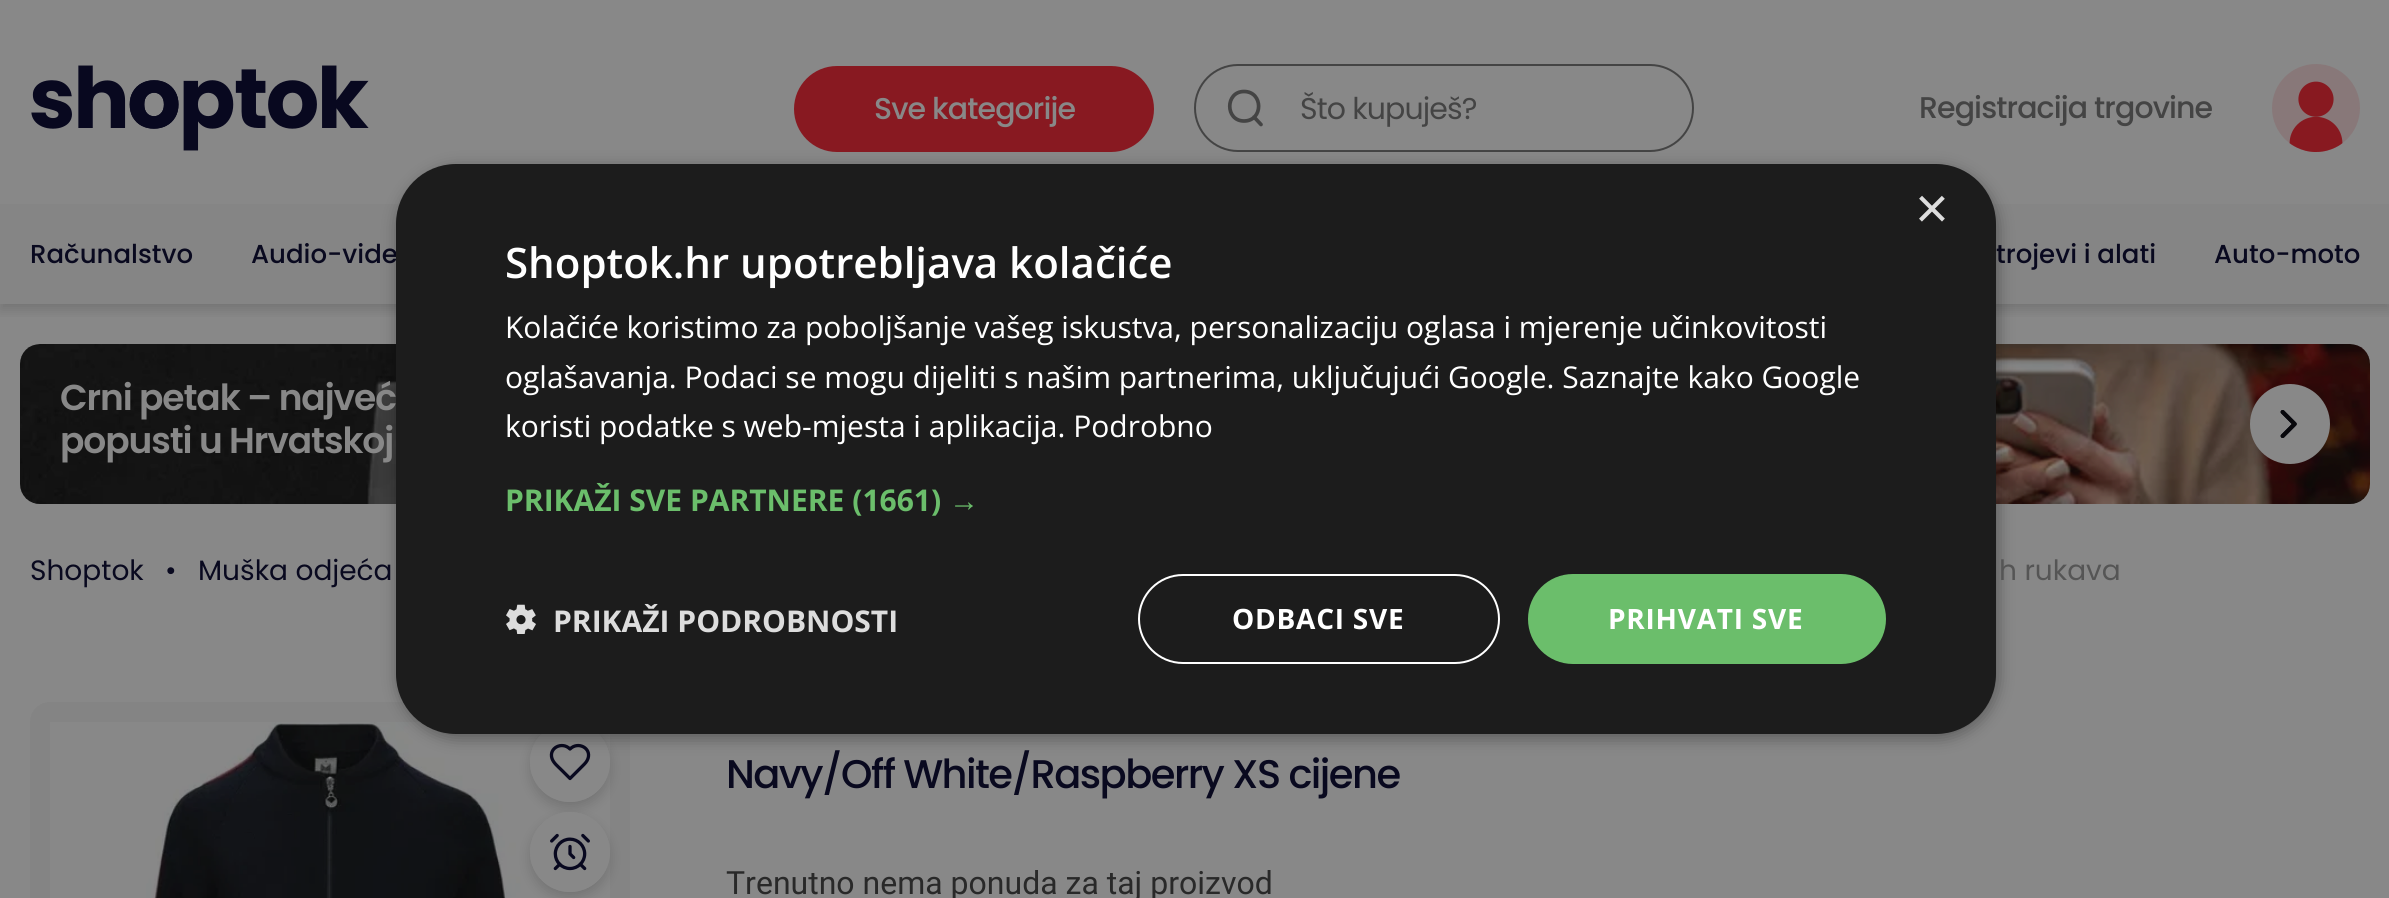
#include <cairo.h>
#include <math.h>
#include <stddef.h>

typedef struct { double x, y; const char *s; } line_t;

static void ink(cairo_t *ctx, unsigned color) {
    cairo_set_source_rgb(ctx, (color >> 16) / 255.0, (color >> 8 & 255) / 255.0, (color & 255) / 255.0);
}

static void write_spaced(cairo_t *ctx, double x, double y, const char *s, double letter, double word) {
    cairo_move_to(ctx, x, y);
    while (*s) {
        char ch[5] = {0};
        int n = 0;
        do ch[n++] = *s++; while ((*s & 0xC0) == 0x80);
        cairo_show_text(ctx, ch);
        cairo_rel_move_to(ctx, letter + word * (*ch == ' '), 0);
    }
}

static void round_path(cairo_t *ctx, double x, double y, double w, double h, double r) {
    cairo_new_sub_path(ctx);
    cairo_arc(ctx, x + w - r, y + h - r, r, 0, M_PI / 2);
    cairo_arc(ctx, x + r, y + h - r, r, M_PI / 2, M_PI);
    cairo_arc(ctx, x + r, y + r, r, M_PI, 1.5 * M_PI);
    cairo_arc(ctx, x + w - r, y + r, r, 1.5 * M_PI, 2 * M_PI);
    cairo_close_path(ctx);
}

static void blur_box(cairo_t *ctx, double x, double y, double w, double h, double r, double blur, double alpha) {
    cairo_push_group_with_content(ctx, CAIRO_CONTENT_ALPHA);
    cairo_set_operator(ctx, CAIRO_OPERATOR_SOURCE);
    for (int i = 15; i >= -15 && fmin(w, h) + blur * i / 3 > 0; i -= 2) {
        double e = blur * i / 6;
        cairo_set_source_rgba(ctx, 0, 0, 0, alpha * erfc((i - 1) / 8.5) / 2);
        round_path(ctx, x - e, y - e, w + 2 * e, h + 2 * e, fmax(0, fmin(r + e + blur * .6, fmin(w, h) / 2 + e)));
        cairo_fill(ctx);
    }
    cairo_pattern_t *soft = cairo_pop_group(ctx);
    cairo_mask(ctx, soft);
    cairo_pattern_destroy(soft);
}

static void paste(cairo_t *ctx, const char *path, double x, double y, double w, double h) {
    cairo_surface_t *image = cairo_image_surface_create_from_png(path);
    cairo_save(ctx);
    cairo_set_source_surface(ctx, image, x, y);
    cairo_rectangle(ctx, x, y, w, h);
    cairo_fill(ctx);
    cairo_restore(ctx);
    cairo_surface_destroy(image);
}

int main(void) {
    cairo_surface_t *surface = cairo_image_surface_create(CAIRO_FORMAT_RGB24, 2389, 898);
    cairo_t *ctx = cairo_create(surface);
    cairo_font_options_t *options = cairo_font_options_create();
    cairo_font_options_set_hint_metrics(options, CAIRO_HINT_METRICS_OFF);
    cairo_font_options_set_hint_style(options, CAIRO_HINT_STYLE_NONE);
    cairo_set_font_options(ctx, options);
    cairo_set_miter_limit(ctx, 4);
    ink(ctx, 0x888888);
    cairo_paint(ctx);
    cairo_save(ctx);
    cairo_rectangle(ctx, 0, 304, 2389, 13);
    cairo_clip(ctx);
    ink(ctx, 0x090909);
    blur_box(ctx, 0, 6, 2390, 304, 0, 6, 0.16);
    cairo_restore(ctx);
    paste(ctx, "media/1.png", 31, 65, 338, 86);
    ink(ctx, 0x881921);
    round_path(ctx, 796, 68, 356, 82, 41);
    cairo_fill_preserve(ctx);
    cairo_set_line_width(ctx, 4);
    cairo_stroke(ctx);
    cairo_select_font_face(ctx, "Poppins Medium", CAIRO_FONT_SLANT_NORMAL, CAIRO_FONT_WEIGHT_NORMAL);
    cairo_set_font_size(ctx, 30);
    ink(ctx, 0x888888);
    write_spaced(ctx, 874, 119, "Sve kategorije", -0.9, 0);
    round_path(ctx, 1195, 65, 498, 86, 43);
    ink(ctx, 0x444444);
    cairo_set_line_width(ctx, 2);
    cairo_stroke(ctx);
    cairo_new_path(ctx);
    cairo_move_to(ctx, 1244, 121);
    cairo_curve_to(ctx, 1263.5, 121, 1263.5, 91.5, 1244, 91.5);
    cairo_curve_to(ctx, 1225, 91.5, 1225, 121, 1244, 121);
    cairo_close_path(ctx);
    cairo_move_to(ctx, 1261, 124.5);
    cairo_line_to(ctx, 1254, 117);
    cairo_set_line_width(ctx, 3.7);
    cairo_set_line_cap(ctx, CAIRO_LINE_CAP_ROUND);
    cairo_set_line_join(ctx, CAIRO_LINE_JOIN_ROUND);
    cairo_stroke(ctx);
    cairo_select_font_face(ctx, "Poppins", CAIRO_FONT_SLANT_NORMAL, CAIRO_FONT_WEIGHT_NORMAL);
    write_spaced(ctx, 1300, 119, "Što kupuješ?", -0.9, 0);
    cairo_select_font_face(ctx, "Poppins Medium", CAIRO_FONT_SLANT_NORMAL, CAIRO_FONT_WEIGHT_NORMAL);
    write_spaced(ctx, 1919, 118, "Registracija trgovine", -0.9, 0);
    paste(ctx, "media/2.png", 2272, 64, 88, 88);
    ink(ctx, 0x858585);
    cairo_rectangle(ctx, 0, 204, 2389, 100);
    cairo_fill(ctx);
    cairo_set_font_size(ctx, 26);
    ink(ctx, 0x09091F);
    {
        static const line_t items[] = {
            {30, 263, "Računalstvo"},
            {251, 263, "Audio-vide"},
            {1996, 263, "trojevi i alati"},
            {2214, 263, "Auto-moto"},
        };
        for (size_t i = 0; i < sizeof items / sizeof *items; i++) {
            cairo_move_to(ctx, items[i].x, items[i].y);
            cairo_show_text(ctx, items[i].s);
        }
    }
    paste(ctx, "media/4.png", 20, 344, 376, 160);
    paste(ctx, "media/5.png", 1996, 344, 374, 160);
    ink(ctx, 0x848484);
    round_path(ctx, 30, 702, 600, 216, 20);
    cairo_fill(ctx);
    paste(ctx, "media/8.png", 50, 722, 560, 176);
    ink(ctx, 0x090909);
    blur_box(ctx, 530, 728, 80, 80, 40, 6, 0.16);
    ink(ctx, 0x888888);
    cairo_arc(ctx, 570, 762, 40, 0, 2 * M_PI);
    cairo_fill(ctx);
    cairo_new_path(ctx);
    cairo_move_to(ctx, 583, 765.5);
    cairo_curve_to(ctx, 585, 763.5, 587, 761.5, 588, 758.5);
    cairo_curve_to(ctx, 591.5, 748, 578, 741, 570, 749);
    cairo_curve_to(ctx, 562, 741, 548.5, 748, 552, 758.5);
    cairo_curve_to(ctx, 553.5, 763, 558, 766.5, 561.5, 770);
    cairo_line_to(ctx, 570, 778.5);
    cairo_close_path(ctx);
    ink(ctx, 0x09091F);
    cairo_set_line_width(ctx, 3.3);
    cairo_stroke(ctx);
    cairo_arc(ctx, 570, 762, 39, 0, 2 * M_PI);
    ink(ctx, 0x888888);
    cairo_set_line_width(ctx, 2);
    cairo_set_line_cap(ctx, CAIRO_LINE_CAP_BUTT);
    cairo_set_line_join(ctx, CAIRO_LINE_JOIN_MITER);
    cairo_stroke(ctx);
    ink(ctx, 0x000000);
    blur_box(ctx, 398, 168, 1600, 570, 60, 8, 0.35);
    ink(ctx, 0x1C1C1C);
    round_path(ctx, 396, 164, 1600, 570, 60);
    cairo_fill(ctx);
    cairo_select_font_face(ctx, "Liberation Sans", CAIRO_FONT_SLANT_NORMAL, CAIRO_FONT_WEIGHT_NORMAL);
    cairo_set_font_size(ctx, 58);
    ink(ctx, 0xDDDDDD);
    cairo_move_to(ctx, 1915, 228);
    cairo_show_text(ctx, "×");
    cairo_select_font_face(ctx, "Open Sans SemiBold", CAIRO_FONT_SLANT_NORMAL, CAIRO_FONT_WEIGHT_NORMAL);
    cairo_set_font_size(ctx, 42);
    ink(ctx, 0xFFFFFF);
    cairo_move_to(ctx, 505, 278);
    cairo_show_text(ctx, "Shoptok.hr upotrebljava kolačiće");
    cairo_select_font_face(ctx, "Open Sans", CAIRO_FONT_SLANT_NORMAL, CAIRO_FONT_WEIGHT_NORMAL);
    cairo_set_font_size(ctx, 30);
    {
        static const line_t items[] = {
            {505, 338, "Kolačiće koristimo za poboljšanje vašeg iskustva, personalizaciju oglasa i mjerenje učinkovitosti"},
            {505, 388, "oglašavanja. Podaci se mogu dijeliti s našim partnerima, uključujući Google. Saznajte kako Google"},
            {505, 437, "koristi podatke s web-mjesta i aplikacija. Podrobno"},
        };
        for (size_t i = 0; i < sizeof items / sizeof *items; i++) {
            cairo_move_to(ctx, items[i].x, items[i].y);
            cairo_show_text(ctx, items[i].s);
        }
    }
    cairo_select_font_face(ctx, "Open Sans", CAIRO_FONT_SLANT_NORMAL, CAIRO_FONT_WEIGHT_BOLD);
    ink(ctx, 0x6BBE6B);
    cairo_move_to(ctx, 505, 511);
    cairo_show_text(ctx, "PRIKAŽI SVE PARTNERE (1661)");
    cairo_select_font_face(ctx, "Liberation Sans", CAIRO_FONT_SLANT_NORMAL, CAIRO_FONT_WEIGHT_BOLD);
    cairo_move_to(ctx, 949, 511);
    cairo_show_text(ctx, "→");
    paste(ctx, "media/3.png", 506, 604, 30, 30);
    cairo_select_font_face(ctx, "Open Sans", CAIRO_FONT_SLANT_NORMAL, CAIRO_FONT_WEIGHT_BOLD);
    ink(ctx, 0xDDDDDD);
    cairo_move_to(ctx, 553, 632);
    cairo_show_text(ctx, "PRIKAŽI PODROBNOSTI");
    round_path(ctx, 1139, 575, 360, 88, 44);
    ink(ctx, 0xFFFFFF);
    cairo_stroke(ctx);
    cairo_set_font_size(ctx, 28);
    write_spaced(ctx, 1232, 629, "ODBACI SVE", 0.75, 0);
    ink(ctx, 0x6BBE6B);
    round_path(ctx, 1528, 574, 358, 90, 45);
    cairo_fill(ctx);
    ink(ctx, 0xFFFFFF);
    write_spaced(ctx, 1608, 629, "PRIHVATI SVE", 0.75, 0);
    cairo_select_font_face(ctx, "Poppins SemiBold", CAIRO_FONT_SLANT_NORMAL, CAIRO_FONT_WEIGHT_NORMAL);
    cairo_set_font_size(ctx, 36);
    ink(ctx, 0x888888);
    write_spaced(ctx, 60, 410, "Crni petak – najveć", -1.1, 0);
    write_spaced(ctx, 60, 453, "popusti u Hrvatskoj", -1.1, 0);
    cairo_new_path(ctx);
    cairo_arc(ctx, 2290, 424, 40, 0, 2 * M_PI);
    cairo_fill(ctx);
    paste(ctx, "media/6.png", 2280, 410, 17, 28);
    cairo_select_font_face(ctx, "Poppins", CAIRO_FONT_SLANT_NORMAL, CAIRO_FONT_WEIGHT_NORMAL);
    cairo_set_font_size(ctx, 28);
    ink(ctx, 0x09091F);
    {
        static const line_t items[] = {
            {30, 580, "Shoptok"},
            {165, 580, "•"},
            {198, 580, "Muška odjeća"},
        };
        for (size_t i = 0; i < sizeof items / sizeof *items; i++) {
            cairo_move_to(ctx, items[i].x, items[i].y);
            cairo_show_text(ctx, items[i].s);
        }
    }
    ink(ctx, 0x555555);
    cairo_move_to(ctx, 1999, 580);
    cairo_show_text(ctx, "h rukava");
    ink(ctx, 0x090909);
    blur_box(ctx, 530, 818, 80, 80, 40, 6, 0.16);
    ink(ctx, 0x888888);
    cairo_arc(ctx, 570, 852, 40, 0, 2 * M_PI);
    cairo_fill(ctx);
    paste(ctx, "media/7.png", 550, 833, 40, 38);
    cairo_arc(ctx, 570, 852, 39, 0, 2 * M_PI);
    cairo_stroke(ctx);
    cairo_select_font_face(ctx, "Poppins Medium", CAIRO_FONT_SLANT_NORMAL, CAIRO_FONT_WEIGHT_NORMAL);
    cairo_set_font_size(ctx, 40);
    ink(ctx, 0x09091F);
    write_spaced(ctx, 726, 788, "Navy/Off White/Raspberry XS cijene", -1.55, 0);
    cairo_select_font_face(ctx, "Roboto", CAIRO_FONT_SLANT_NORMAL, CAIRO_FONT_WEIGHT_NORMAL);
    cairo_set_font_size(ctx, 32);
    ink(ctx, 0x292929);
    cairo_move_to(ctx, 726, 894);
    cairo_show_text(ctx, "Trenutno nema ponuda za taj proizvod");
    cairo_surface_write_to_png(surface, "image.png");
    cairo_font_options_destroy(options);
    cairo_destroy(ctx);
    cairo_surface_destroy(surface);
    return 0;
}
